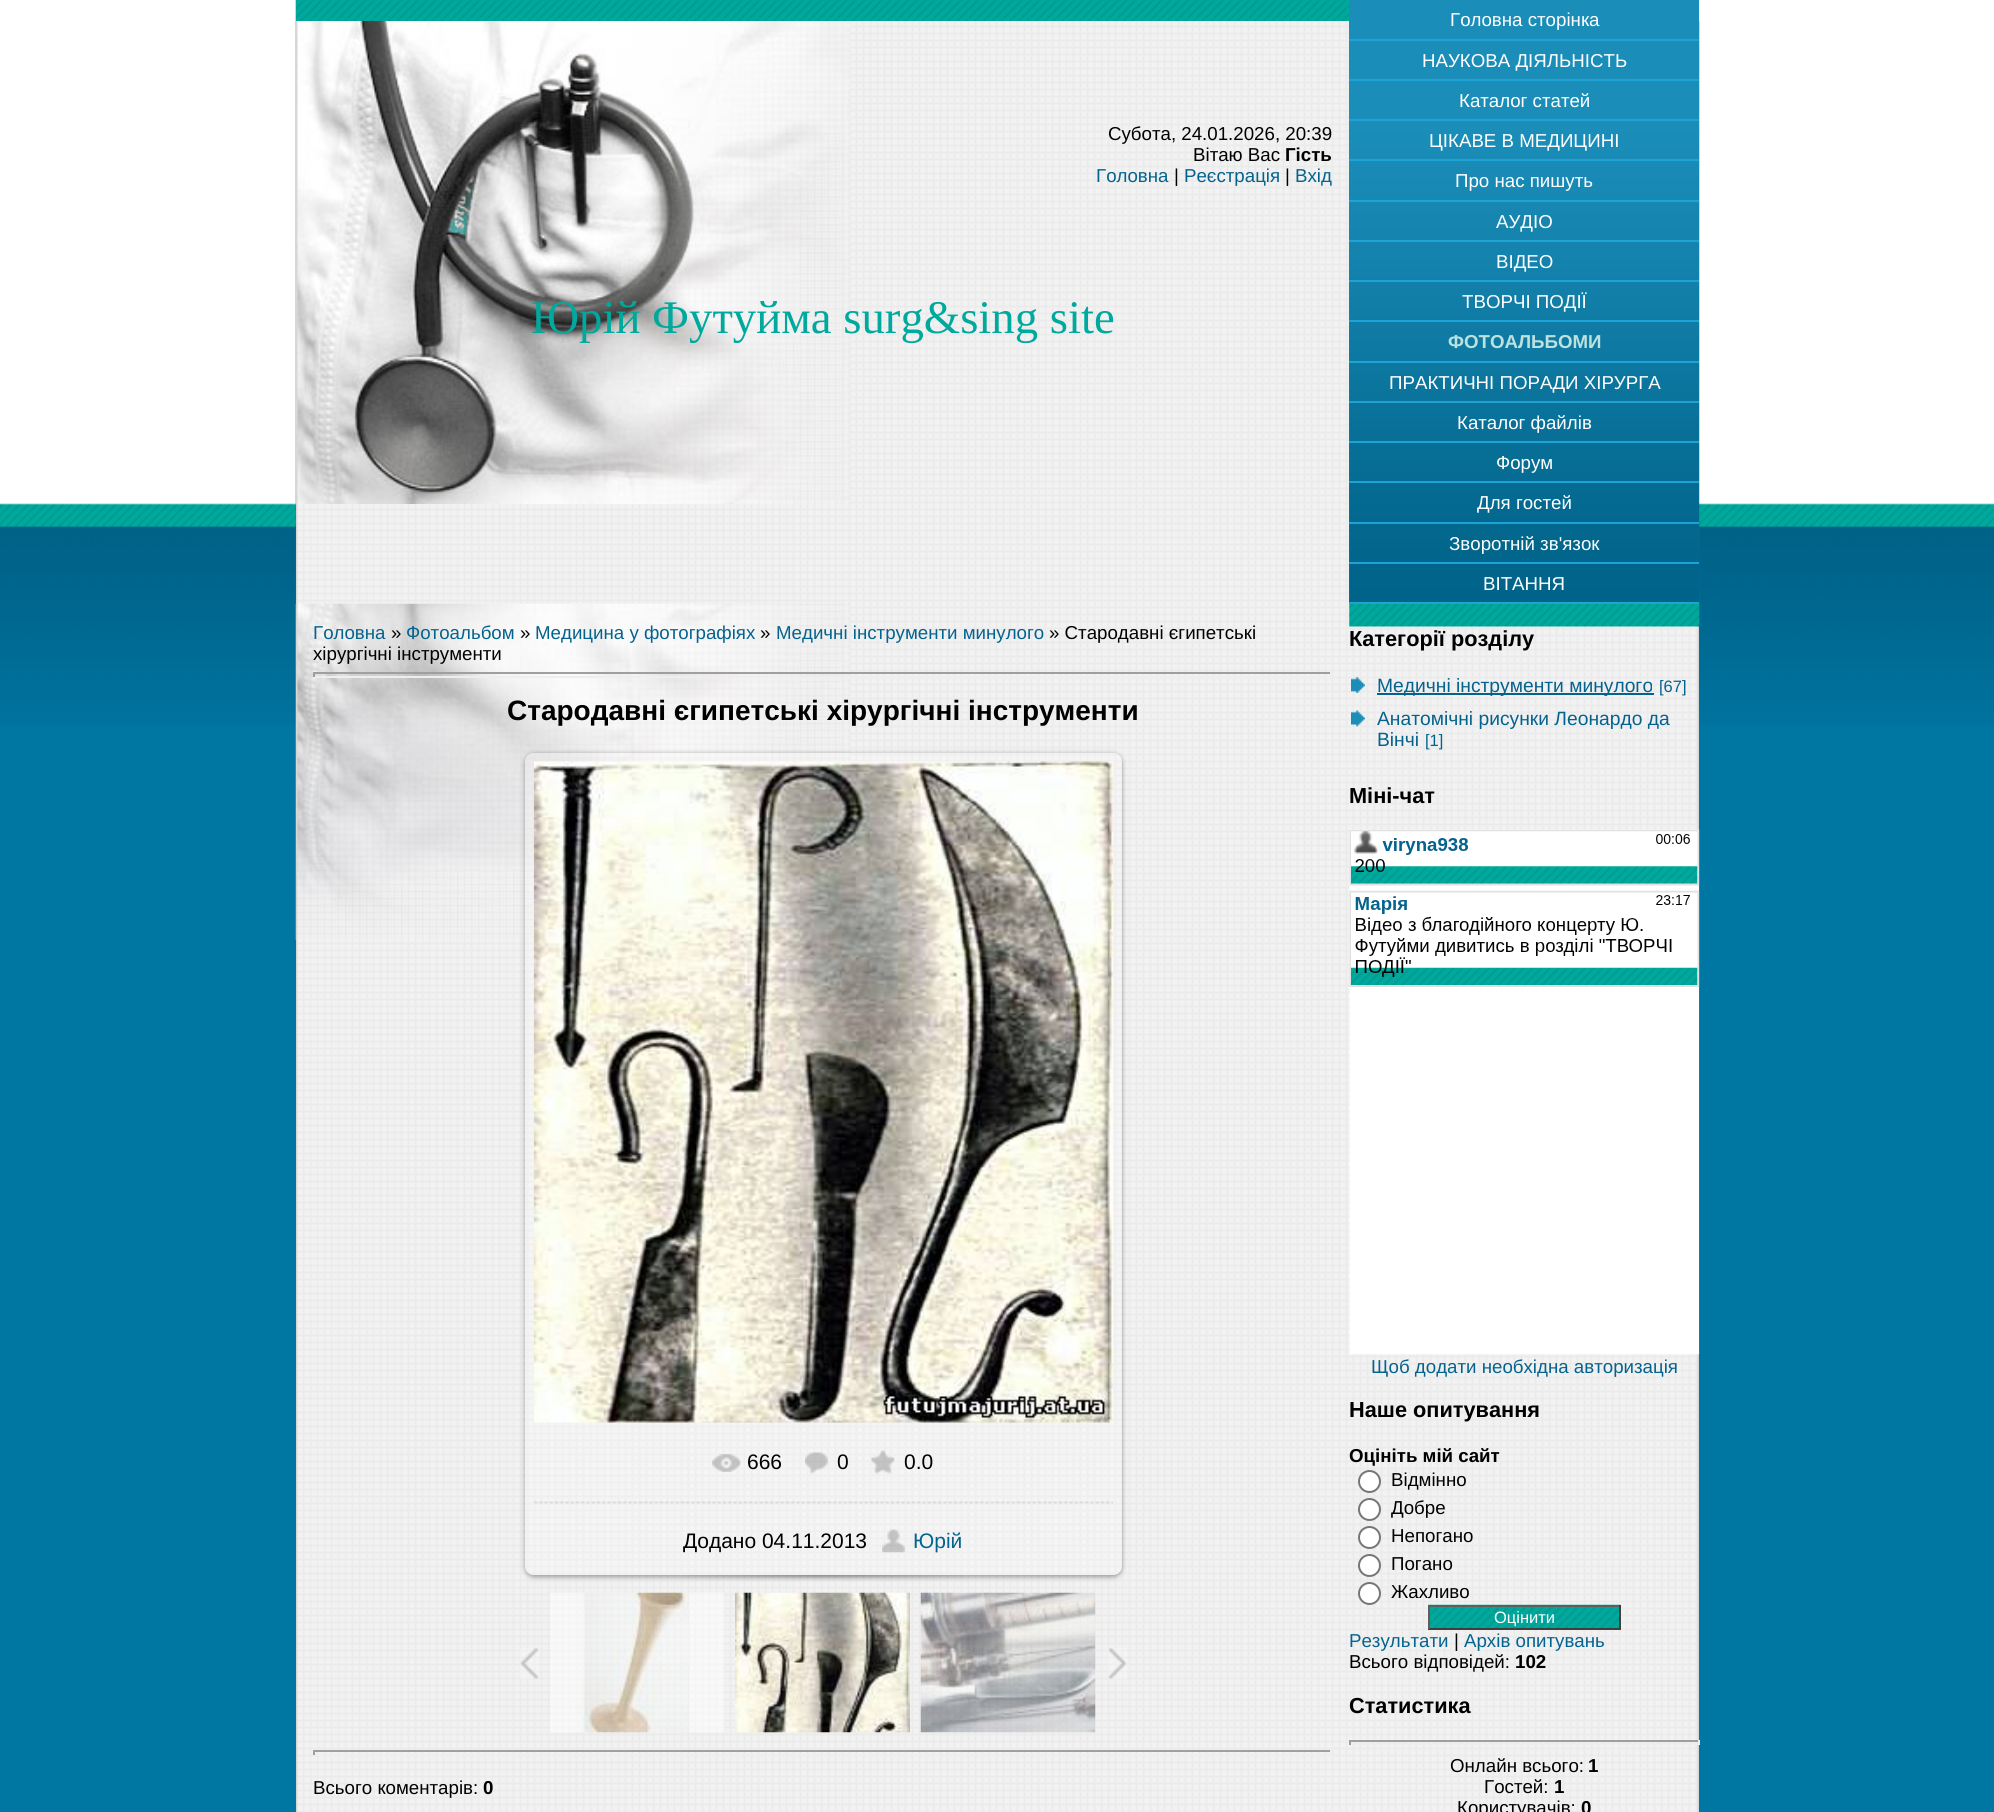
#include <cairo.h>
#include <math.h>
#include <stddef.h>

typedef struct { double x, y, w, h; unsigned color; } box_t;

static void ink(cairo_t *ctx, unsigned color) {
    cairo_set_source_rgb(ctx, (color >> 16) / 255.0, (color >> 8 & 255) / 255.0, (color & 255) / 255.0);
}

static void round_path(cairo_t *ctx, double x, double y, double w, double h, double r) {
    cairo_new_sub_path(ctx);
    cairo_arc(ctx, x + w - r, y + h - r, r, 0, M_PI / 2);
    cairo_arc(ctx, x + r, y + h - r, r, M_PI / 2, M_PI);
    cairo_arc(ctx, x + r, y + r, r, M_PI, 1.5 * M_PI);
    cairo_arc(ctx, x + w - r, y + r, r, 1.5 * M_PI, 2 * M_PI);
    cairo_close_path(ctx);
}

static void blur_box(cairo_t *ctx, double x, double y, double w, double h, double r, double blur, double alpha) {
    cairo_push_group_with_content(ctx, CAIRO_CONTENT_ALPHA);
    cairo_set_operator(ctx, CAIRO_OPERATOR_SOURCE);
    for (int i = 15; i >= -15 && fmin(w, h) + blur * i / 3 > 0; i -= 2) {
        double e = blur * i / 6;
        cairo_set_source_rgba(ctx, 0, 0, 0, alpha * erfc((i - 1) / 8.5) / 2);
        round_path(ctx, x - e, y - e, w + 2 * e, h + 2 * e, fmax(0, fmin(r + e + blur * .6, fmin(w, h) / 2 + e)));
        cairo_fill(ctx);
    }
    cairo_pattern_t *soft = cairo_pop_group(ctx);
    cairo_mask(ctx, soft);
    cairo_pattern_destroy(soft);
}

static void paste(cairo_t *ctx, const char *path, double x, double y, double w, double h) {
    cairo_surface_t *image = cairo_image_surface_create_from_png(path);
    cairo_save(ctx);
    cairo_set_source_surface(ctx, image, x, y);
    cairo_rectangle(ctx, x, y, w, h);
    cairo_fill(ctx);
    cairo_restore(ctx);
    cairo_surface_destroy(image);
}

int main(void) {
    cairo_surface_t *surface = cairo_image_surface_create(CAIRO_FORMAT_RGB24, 1994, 1812);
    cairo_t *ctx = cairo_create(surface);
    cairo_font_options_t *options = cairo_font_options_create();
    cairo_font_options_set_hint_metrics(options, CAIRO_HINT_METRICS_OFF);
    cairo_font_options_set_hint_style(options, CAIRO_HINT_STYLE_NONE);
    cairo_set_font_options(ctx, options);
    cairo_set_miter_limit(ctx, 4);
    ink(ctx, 0xFFFFFF);
    cairo_paint(ctx);
    paste(ctx, "media/1.png", 295, 0, 1405, 1812);
    ink(ctx, 0x0076A3);
    cairo_rectangle(ctx, 0, 21, 296, 1791);
    cairo_fill(ctx);
    paste(ctx, "media/2.png", 0, 21, 296, 705);
    paste(ctx, "media/3.png", 295, 21, 556, 483);
    cairo_select_font_face(ctx, "Liberation Sans", CAIRO_FONT_SLANT_NORMAL, CAIRO_FONT_WEIGHT_NORMAL);
    cairo_set_font_size(ctx, 18.7);
    ink(ctx, 0x000000);
    cairo_move_to(ctx, 1108, 140);
    cairo_show_text(ctx, "Субота, 24.01.2026, 20:39");
    cairo_move_to(ctx, 1193, 161);
    cairo_show_text(ctx, "Вітаю Вас");
    cairo_select_font_face(ctx, "Liberation Sans", CAIRO_FONT_SLANT_NORMAL, CAIRO_FONT_WEIGHT_BOLD);
    cairo_move_to(ctx, 1285, 161);
    cairo_show_text(ctx, "Гість");
    cairo_select_font_face(ctx, "Liberation Sans", CAIRO_FONT_SLANT_NORMAL, CAIRO_FONT_WEIGHT_NORMAL);
    ink(ctx, 0x04638E);
    cairo_move_to(ctx, 1096, 182);
    cairo_show_text(ctx, "Головна");
    ink(ctx, 0x000000);
    cairo_move_to(ctx, 1174, 182);
    cairo_show_text(ctx, "|");
    ink(ctx, 0x04638E);
    cairo_move_to(ctx, 1184, 182);
    cairo_show_text(ctx, "Реєстрація");
    ink(ctx, 0x000000);
    cairo_move_to(ctx, 1285, 182);
    cairo_show_text(ctx, "|");
    ink(ctx, 0x04638E);
    cairo_move_to(ctx, 1295, 182);
    cairo_show_text(ctx, "Вхід");
    cairo_select_font_face(ctx, "Liberation Serif", CAIRO_FONT_SLANT_NORMAL, CAIRO_FONT_WEIGHT_NORMAL);
    cairo_set_font_size(ctx, 46.75);
    ink(ctx, 0x00A99D);
    cairo_move_to(ctx, 531, 333);
    cairo_show_text(ctx, "Юрій Футуйма surg&sing site");
    ink(ctx, 0x0076A3);
    cairo_rectangle(ctx, 1699, 21, 295, 1791);
    cairo_fill(ctx);
    paste(ctx, "media/4.png", 1699, 21, 295, 705);
    paste(ctx, "media/5.png", 295, 0, 1054, 21);
    ink(ctx, 0x1A8DB9);
    cairo_rectangle(ctx, 1349, 0, 350, 602);
    cairo_fill(ctx);
    paste(ctx, "media/6.png", 1349, 121, 350, 481);
    ink(ctx, 0x1EA3D6);
    cairo_rectangle(ctx, 1349, 39, 350, 2);
    cairo_fill(ctx);
    cairo_select_font_face(ctx, "Liberation Sans", CAIRO_FONT_SLANT_NORMAL, CAIRO_FONT_WEIGHT_NORMAL);
    cairo_set_font_size(ctx, 18.7);
    ink(ctx, 0xFFFFFF);
    cairo_move_to(ctx, 1450, 26);
    cairo_show_text(ctx, "Головна сторінка");
    ink(ctx, 0x1EA3D6);
    cairo_rectangle(ctx, 1349, 79, 350, 2);
    cairo_fill(ctx);
    ink(ctx, 0xFFFFFF);
    cairo_move_to(ctx, 1422, 67);
    cairo_show_text(ctx, "НАУКОВА ДІЯЛЬНІСТЬ");
    ink(ctx, 0x1EA3D6);
    cairo_rectangle(ctx, 1349, 119, 350, 2);
    cairo_fill(ctx);
    ink(ctx, 0xFFFFFF);
    cairo_move_to(ctx, 1459, 107);
    cairo_show_text(ctx, "Каталог статей");
    ink(ctx, 0x1EA3D6);
    cairo_rectangle(ctx, 1349, 159, 350, 2);
    cairo_fill(ctx);
    ink(ctx, 0xFFFFFF);
    cairo_move_to(ctx, 1429, 147);
    cairo_show_text(ctx, "ЦІКАВЕ В МЕДИЦИНІ");
    ink(ctx, 0x1EA3D6);
    cairo_rectangle(ctx, 1349, 200, 350, 2);
    cairo_fill(ctx);
    ink(ctx, 0xFFFFFF);
    cairo_move_to(ctx, 1455, 187);
    cairo_show_text(ctx, "Про нас пишуть");
    ink(ctx, 0x1EA3D6);
    cairo_rectangle(ctx, 1349, 240, 350, 2);
    cairo_fill(ctx);
    ink(ctx, 0xFFFFFF);
    cairo_move_to(ctx, 1496, 228);
    cairo_show_text(ctx, "АУДІО");
    ink(ctx, 0x1EA3D6);
    cairo_rectangle(ctx, 1349, 280, 350, 2);
    cairo_fill(ctx);
    ink(ctx, 0xFFFFFF);
    cairo_move_to(ctx, 1496, 268);
    cairo_show_text(ctx, "ВІДЕО");
    ink(ctx, 0x1EA3D6);
    cairo_rectangle(ctx, 1349, 320, 350, 2);
    cairo_fill(ctx);
    ink(ctx, 0xFFFFFF);
    cairo_move_to(ctx, 1462, 308);
    cairo_show_text(ctx, "ТВОРЧІ ПОДІЇ");
    ink(ctx, 0x1EA3D6);
    cairo_rectangle(ctx, 1349, 361, 350, 2);
    cairo_fill(ctx);
    cairo_select_font_face(ctx, "Liberation Sans", CAIRO_FONT_SLANT_NORMAL, CAIRO_FONT_WEIGHT_BOLD);
    ink(ctx, 0xBCE2DF);
    cairo_move_to(ctx, 1448, 348);
    cairo_show_text(ctx, "ФОТОАЛЬБОМИ");
    ink(ctx, 0x1EA3D6);
    cairo_rectangle(ctx, 1349, 401, 350, 2);
    cairo_fill(ctx);
    cairo_select_font_face(ctx, "Liberation Sans", CAIRO_FONT_SLANT_NORMAL, CAIRO_FONT_WEIGHT_NORMAL);
    ink(ctx, 0xFFFFFF);
    cairo_move_to(ctx, 1389, 389);
    cairo_show_text(ctx, "ПРАКТИЧНІ ПОРАДИ ХІРУРГА");
    ink(ctx, 0x1EA3D6);
    cairo_rectangle(ctx, 1349, 441, 350, 2);
    cairo_fill(ctx);
    ink(ctx, 0xFFFFFF);
    cairo_move_to(ctx, 1457, 429);
    cairo_show_text(ctx, "Каталог файлів");
    ink(ctx, 0x1EA3D6);
    cairo_rectangle(ctx, 1349, 481, 350, 2);
    cairo_fill(ctx);
    ink(ctx, 0xFFFFFF);
    cairo_move_to(ctx, 1496, 469);
    cairo_show_text(ctx, "Форум");
    ink(ctx, 0x1EA3D6);
    cairo_rectangle(ctx, 1349, 522, 350, 2);
    cairo_fill(ctx);
    ink(ctx, 0xFFFFFF);
    cairo_move_to(ctx, 1477, 509);
    cairo_show_text(ctx, "Для гостей");
    ink(ctx, 0x1EA3D6);
    cairo_rectangle(ctx, 1349, 562, 350, 2);
    cairo_fill(ctx);
    ink(ctx, 0xFFFFFF);
    cairo_move_to(ctx, 1449, 550);
    cairo_show_text(ctx, "Зворотній зв'язок");
    paste(ctx, "media/21.png", 1349, 603, 351, 24);
    ink(ctx, 0x1EA3D6);
    cairo_rectangle(ctx, 1349, 602, 350, 2);
    cairo_fill(ctx);
    ink(ctx, 0xFFFFFF);
    cairo_move_to(ctx, 1483, 590);
    cairo_show_text(ctx, "ВІТАННЯ");
    paste(ctx, "media/7.png", 295, 603, 556, 337);
    ink(ctx, 0x04638E);
    cairo_move_to(ctx, 313, 639);
    cairo_show_text(ctx, "Головна");
    ink(ctx, 0x000000);
    cairo_move_to(ctx, 391, 639);
    cairo_show_text(ctx, "»");
    ink(ctx, 0x04638E);
    cairo_move_to(ctx, 406, 639);
    cairo_show_text(ctx, "Фотоальбом");
    ink(ctx, 0x000000);
    cairo_move_to(ctx, 520, 639);
    cairo_show_text(ctx, "»");
    ink(ctx, 0x04638E);
    cairo_move_to(ctx, 535, 639);
    cairo_show_text(ctx, "Медицина у фотографіях");
    ink(ctx, 0x000000);
    cairo_move_to(ctx, 760, 639);
    cairo_show_text(ctx, "»");
    ink(ctx, 0x04638E);
    cairo_move_to(ctx, 776, 639);
    cairo_show_text(ctx, "Медичні інструменти минулого");
    ink(ctx, 0x000000);
    cairo_move_to(ctx, 1049, 639);
    cairo_show_text(ctx, "» Стародавні єгипетські");
    cairo_move_to(ctx, 313, 660);
    cairo_show_text(ctx, "хірургічні інструменти");
    {
        static const box_t items[] = {
            {313, 672, 1019, 2, 0x9F9F9F},
            {1330, 672, 2, 5, 0xEEEEEE},
            {313, 676, 1019, 2, 0xEEEEEE},
            {313, 672, 2, 5, 0x9F9F9F},
        };
        for (size_t i = 0; i < sizeof items / sizeof *items; i++) {
            ink(ctx, items[i].color);
            cairo_rectangle(ctx, items[i].x, items[i].y, items[i].w, items[i].h);
            cairo_fill(ctx);
        }
    }
    cairo_select_font_face(ctx, "Liberation Sans", CAIRO_FONT_SLANT_NORMAL, CAIRO_FONT_WEIGHT_BOLD);
    cairo_set_font_size(ctx, 28);
    ink(ctx, 0x000000);
    cairo_move_to(ctx, 507, 720);
    cairo_show_text(ctx, "Стародавні єгипетські хірургічні інструменти");
    cairo_save(ctx);
    cairo_set_fill_rule(ctx, CAIRO_FILL_RULE_EVEN_ODD);
    cairo_new_path(ctx);
    cairo_move_to(ctx, 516, 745);
    cairo_line_to(ctx, 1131, 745);
    cairo_line_to(ctx, 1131, 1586);
    cairo_line_to(ctx, 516, 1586);
    cairo_close_path(ctx);
    cairo_move_to(ctx, 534, 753);
    cairo_line_to(ctx, 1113, 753);
    cairo_curve_to(ctx, 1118, 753, 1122, 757, 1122, 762);
    cairo_line_to(ctx, 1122, 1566);
    cairo_curve_to(ctx, 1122, 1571, 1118, 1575, 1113, 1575);
    cairo_line_to(ctx, 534, 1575);
    cairo_curve_to(ctx, 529, 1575, 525, 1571, 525, 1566);
    cairo_line_to(ctx, 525, 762);
    cairo_curve_to(ctx, 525, 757, 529, 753, 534, 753);
    cairo_close_path(ctx);
    cairo_clip(ctx);
    ink(ctx, 0x000000);
    blur_box(ctx, 525, 754, 597, 823, 9, 2.5, 0.37);
    cairo_restore(ctx);
    paste(ctx, "media/8.png", 525, 753, 596, 822);
    paste(ctx, "media/9.png", 533, 761, 580, 662);
    paste(ctx, "media/10.png", 712, 1454, 29, 18);
    cairo_select_font_face(ctx, "Liberation Sans", CAIRO_FONT_SLANT_NORMAL, CAIRO_FONT_WEIGHT_NORMAL);
    cairo_set_font_size(ctx, 21);
    cairo_move_to(ctx, 747, 1469);
    cairo_show_text(ctx, "666");
    paste(ctx, "media/11.png", 805, 1452, 23, 22);
    cairo_move_to(ctx, 837, 1469);
    cairo_show_text(ctx, "0");
    paste(ctx, "media/12.png", 871, 1450, 24, 24);
    cairo_move_to(ctx, 904, 1469);
    cairo_show_text(ctx, "0.0");
    paste(ctx, "media/13.png", 534, 1501, 579, 3);
    cairo_move_to(ctx, 683, 1548);
    cairo_show_text(ctx, "Додано 04.11.2013");
    paste(ctx, "media/14.png", 882, 1529, 23, 24);
    ink(ctx, 0x04638E);
    cairo_move_to(ctx, 913, 1548);
    cairo_show_text(ctx, "Юрій");
    paste(ctx, "media/15.png", 683, 1575, 280, 6);
    paste(ctx, "media/16.png", 520, 1648, 19, 31);
    paste(ctx, "media/17.png", 550, 1592, 174, 141);
    paste(ctx, "media/18.png", 735, 1592, 175, 141);
    paste(ctx, "media/19.png", 920, 1592, 176, 141);
    paste(ctx, "media/20.png", 1108, 1648, 19, 31);
    {
        static const box_t items[] = {
            {313, 1750, 1019, 2, 0x9F9F9F},
            {1330, 1750, 2, 5, 0xEEEEEE},
            {313, 1754, 1019, 2, 0xEEEEEE},
            {313, 1750, 2, 5, 0x9F9F9F},
        };
        for (size_t i = 0; i < sizeof items / sizeof *items; i++) {
            ink(ctx, items[i].color);
            cairo_rectangle(ctx, items[i].x, items[i].y, items[i].w, items[i].h);
            cairo_fill(ctx);
        }
    }
    cairo_set_font_size(ctx, 18.7);
    ink(ctx, 0x000000);
    cairo_move_to(ctx, 313, 1794);
    cairo_show_text(ctx, "Всього коментарів:");
    cairo_select_font_face(ctx, "Liberation Sans", CAIRO_FONT_SLANT_NORMAL, CAIRO_FONT_WEIGHT_BOLD);
    cairo_move_to(ctx, 483, 1794);
    cairo_show_text(ctx, "0");
    cairo_set_font_size(ctx, 21.75);
    cairo_move_to(ctx, 1349, 646);
    cairo_show_text(ctx, "Категорії розділу");
    paste(ctx, "media/22.png", 1351, 677, 14, 16);
    ink(ctx, 0x04638E);
    cairo_rectangle(ctx, 1377, 693, 277, 2);
    cairo_fill(ctx);
    cairo_select_font_face(ctx, "Liberation Sans", CAIRO_FONT_SLANT_NORMAL, CAIRO_FONT_WEIGHT_NORMAL);
    cairo_set_font_size(ctx, 19.25);
    cairo_move_to(ctx, 1377, 692);
    cairo_show_text(ctx, "Медичні інструменти минулого");
    cairo_set_font_size(ctx, 16.5);
    cairo_move_to(ctx, 1659, 692);
    cairo_show_text(ctx, "[67]");
    paste(ctx, "media/23.png", 1351, 710, 14, 17);
    cairo_set_font_size(ctx, 19.25);
    cairo_move_to(ctx, 1377, 725);
    cairo_show_text(ctx, "Анатомічні рисунки Леонардо да");
    cairo_move_to(ctx, 1377, 746);
    cairo_show_text(ctx, "Вінчі");
    cairo_set_font_size(ctx, 16.5);
    cairo_move_to(ctx, 1425, 746);
    cairo_show_text(ctx, "[1]");
    cairo_select_font_face(ctx, "Liberation Sans", CAIRO_FONT_SLANT_NORMAL, CAIRO_FONT_WEIGHT_BOLD);
    cairo_set_font_size(ctx, 21.75);
    ink(ctx, 0x000000);
    cairo_move_to(ctx, 1349, 803);
    cairo_show_text(ctx, "Міні-чат");
    paste(ctx, "media/24.png", 1349, 829, 351, 526);
    cairo_select_font_face(ctx, "Liberation Sans", CAIRO_FONT_SLANT_NORMAL, CAIRO_FONT_WEIGHT_NORMAL);
    cairo_set_font_size(ctx, 18.7);
    ink(ctx, 0x04638E);
    cairo_move_to(ctx, 1371, 1373);
    cairo_show_text(ctx, "Щоб додати необхідна авторизація");
    cairo_select_font_face(ctx, "Liberation Sans", CAIRO_FONT_SLANT_NORMAL, CAIRO_FONT_WEIGHT_BOLD);
    cairo_set_font_size(ctx, 21.75);
    ink(ctx, 0x000000);
    cairo_move_to(ctx, 1349, 1417);
    cairo_show_text(ctx, "Наше опитування");
    cairo_set_font_size(ctx, 18.7);
    cairo_move_to(ctx, 1349, 1462);
    cairo_show_text(ctx, "Оцініть мій сайт");
    ink(ctx, 0xFFFFFF);
    cairo_new_path(ctx);
    cairo_arc(ctx, 1369.5, 1481.5, 10.5, 0, 2 * M_PI);
    cairo_fill_preserve(ctx);
    ink(ctx, 0x767676);
    cairo_stroke(ctx);
    cairo_select_font_face(ctx, "Liberation Sans", CAIRO_FONT_SLANT_NORMAL, CAIRO_FONT_WEIGHT_NORMAL);
    ink(ctx, 0x000000);
    cairo_move_to(ctx, 1391, 1486);
    cairo_show_text(ctx, "Відмінно");
    ink(ctx, 0xFFFFFF);
    cairo_new_path(ctx);
    cairo_arc(ctx, 1369.5, 1509.5, 10.5, 0, 2 * M_PI);
    cairo_fill_preserve(ctx);
    ink(ctx, 0x767676);
    cairo_stroke(ctx);
    ink(ctx, 0x000000);
    cairo_move_to(ctx, 1391, 1514);
    cairo_show_text(ctx, "Добре");
    ink(ctx, 0xFFFFFF);
    cairo_new_path(ctx);
    cairo_arc(ctx, 1369.5, 1537.5, 10.5, 0, 2 * M_PI);
    cairo_fill_preserve(ctx);
    ink(ctx, 0x767676);
    cairo_stroke(ctx);
    ink(ctx, 0x000000);
    cairo_move_to(ctx, 1391, 1542);
    cairo_show_text(ctx, "Непогано");
    ink(ctx, 0xFFFFFF);
    cairo_new_path(ctx);
    cairo_arc(ctx, 1369.5, 1565.5, 10.5, 0, 2 * M_PI);
    cairo_fill_preserve(ctx);
    ink(ctx, 0x767676);
    cairo_stroke(ctx);
    ink(ctx, 0x000000);
    cairo_move_to(ctx, 1391, 1570);
    cairo_show_text(ctx, "Погано");
    ink(ctx, 0xFFFFFF);
    cairo_new_path(ctx);
    cairo_arc(ctx, 1369.5, 1593.5, 10.5, 0, 2 * M_PI);
    cairo_fill_preserve(ctx);
    ink(ctx, 0x767676);
    cairo_stroke(ctx);
    ink(ctx, 0x000000);
    cairo_move_to(ctx, 1391, 1598);
    cairo_show_text(ctx, "Жахливо");
    paste(ctx, "media/25.png", 1428, 1604, 193, 24);
    {
        static const box_t items[] = {
            {1428, 1605, 193, 2, 0x615E58},
            {1619, 1605, 2, 24, 0x413F3B},
            {1428, 1628, 193, 2, 0x413F3B},
            {1428, 1605, 2, 24, 0x615E58},
        };
        for (size_t i = 0; i < sizeof items / sizeof *items; i++) {
            ink(ctx, items[i].color);
            cairo_rectangle(ctx, items[i].x, items[i].y, items[i].w, items[i].h);
            cairo_fill(ctx);
        }
    }
    cairo_set_font_size(ctx, 16.5);
    ink(ctx, 0xFFFFFF);
    cairo_move_to(ctx, 1494, 1623);
    cairo_show_text(ctx, "Оцінити");
    cairo_set_font_size(ctx, 18.7);
    ink(ctx, 0x04638E);
    cairo_move_to(ctx, 1349, 1647);
    cairo_show_text(ctx, "Результати");
    ink(ctx, 0x000000);
    cairo_move_to(ctx, 1454, 1647);
    cairo_show_text(ctx, "|");
    ink(ctx, 0x04638E);
    cairo_move_to(ctx, 1464, 1647);
    cairo_show_text(ctx, "Архів опитувань");
    ink(ctx, 0x000000);
    cairo_move_to(ctx, 1349, 1668);
    cairo_show_text(ctx, "Всього відповідей:");
    cairo_select_font_face(ctx, "Liberation Sans", CAIRO_FONT_SLANT_NORMAL, CAIRO_FONT_WEIGHT_BOLD);
    cairo_move_to(ctx, 1515, 1668);
    cairo_show_text(ctx, "102");
    cairo_set_font_size(ctx, 21.75);
    cairo_move_to(ctx, 1349, 1713);
    cairo_show_text(ctx, "Статистика");
    {
        static const box_t items[] = {
            {1349, 1740, 350, 2, 0x9F9F9F},
            {1698, 1740, 2, 5, 0xEEEEEE},
            {1349, 1743, 350, 2, 0xEEEEEE},
            {1349, 1740, 2, 5, 0x9F9F9F},
        };
        for (size_t i = 0; i < sizeof items / sizeof *items; i++) {
            ink(ctx, items[i].color);
            cairo_rectangle(ctx, items[i].x, items[i].y, items[i].w, items[i].h);
            cairo_fill(ctx);
        }
    }
    cairo_select_font_face(ctx, "Liberation Sans", CAIRO_FONT_SLANT_NORMAL, CAIRO_FONT_WEIGHT_NORMAL);
    cairo_set_font_size(ctx, 18.7);
    ink(ctx, 0x000000);
    cairo_move_to(ctx, 1450, 1772);
    cairo_show_text(ctx, "Онлайн всього:");
    cairo_select_font_face(ctx, "Liberation Sans", CAIRO_FONT_SLANT_NORMAL, CAIRO_FONT_WEIGHT_BOLD);
    cairo_move_to(ctx, 1588, 1772);
    cairo_show_text(ctx, "1");
    cairo_select_font_face(ctx, "Liberation Sans", CAIRO_FONT_SLANT_NORMAL, CAIRO_FONT_WEIGHT_NORMAL);
    cairo_move_to(ctx, 1484, 1793);
    cairo_show_text(ctx, "Гостей:");
    cairo_select_font_face(ctx, "Liberation Sans", CAIRO_FONT_SLANT_NORMAL, CAIRO_FONT_WEIGHT_BOLD);
    cairo_move_to(ctx, 1554, 1793);
    cairo_show_text(ctx, "1");
    cairo_select_font_face(ctx, "Liberation Sans", CAIRO_FONT_SLANT_NORMAL, CAIRO_FONT_WEIGHT_NORMAL);
    cairo_move_to(ctx, 1457, 1814);
    cairo_show_text(ctx, "Користувачів:");
    cairo_select_font_face(ctx, "Liberation Sans", CAIRO_FONT_SLANT_NORMAL, CAIRO_FONT_WEIGHT_BOLD);
    cairo_move_to(ctx, 1581, 1814);
    cairo_show_text(ctx, "0");
    cairo_surface_write_to_png(surface, "image.png");
    cairo_font_options_destroy(options);
    cairo_destroy(ctx);
    cairo_surface_destroy(surface);
    return 0;
}
